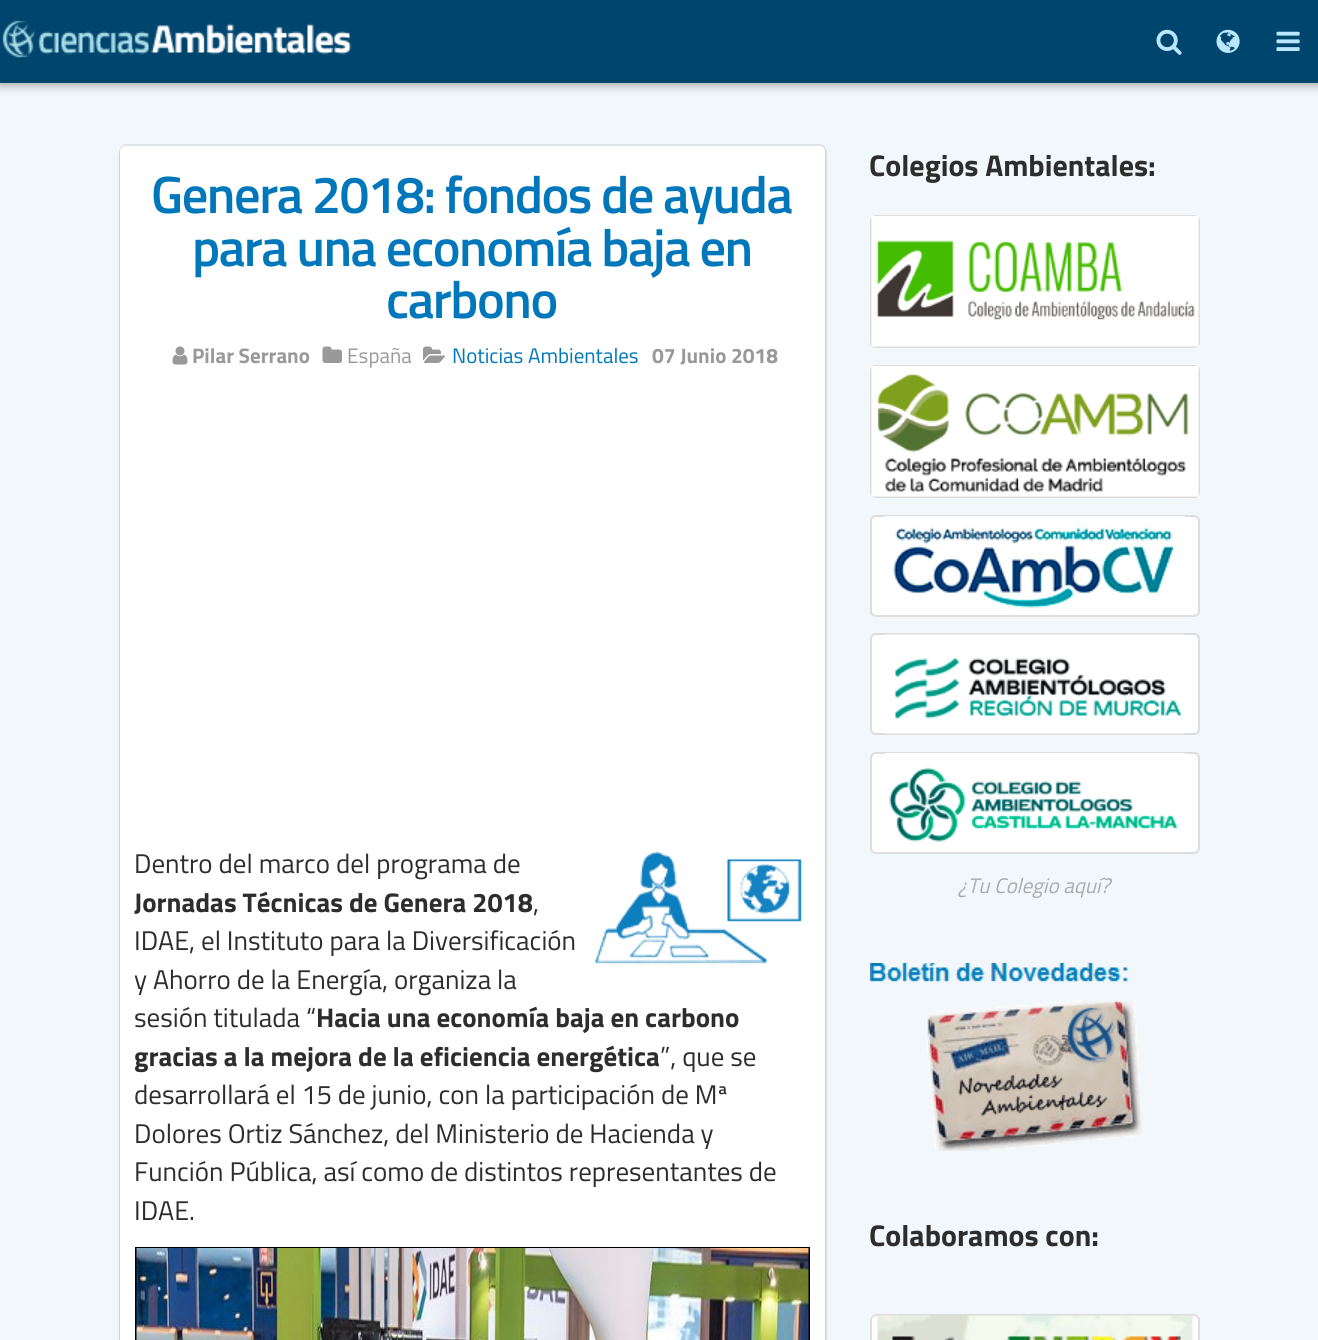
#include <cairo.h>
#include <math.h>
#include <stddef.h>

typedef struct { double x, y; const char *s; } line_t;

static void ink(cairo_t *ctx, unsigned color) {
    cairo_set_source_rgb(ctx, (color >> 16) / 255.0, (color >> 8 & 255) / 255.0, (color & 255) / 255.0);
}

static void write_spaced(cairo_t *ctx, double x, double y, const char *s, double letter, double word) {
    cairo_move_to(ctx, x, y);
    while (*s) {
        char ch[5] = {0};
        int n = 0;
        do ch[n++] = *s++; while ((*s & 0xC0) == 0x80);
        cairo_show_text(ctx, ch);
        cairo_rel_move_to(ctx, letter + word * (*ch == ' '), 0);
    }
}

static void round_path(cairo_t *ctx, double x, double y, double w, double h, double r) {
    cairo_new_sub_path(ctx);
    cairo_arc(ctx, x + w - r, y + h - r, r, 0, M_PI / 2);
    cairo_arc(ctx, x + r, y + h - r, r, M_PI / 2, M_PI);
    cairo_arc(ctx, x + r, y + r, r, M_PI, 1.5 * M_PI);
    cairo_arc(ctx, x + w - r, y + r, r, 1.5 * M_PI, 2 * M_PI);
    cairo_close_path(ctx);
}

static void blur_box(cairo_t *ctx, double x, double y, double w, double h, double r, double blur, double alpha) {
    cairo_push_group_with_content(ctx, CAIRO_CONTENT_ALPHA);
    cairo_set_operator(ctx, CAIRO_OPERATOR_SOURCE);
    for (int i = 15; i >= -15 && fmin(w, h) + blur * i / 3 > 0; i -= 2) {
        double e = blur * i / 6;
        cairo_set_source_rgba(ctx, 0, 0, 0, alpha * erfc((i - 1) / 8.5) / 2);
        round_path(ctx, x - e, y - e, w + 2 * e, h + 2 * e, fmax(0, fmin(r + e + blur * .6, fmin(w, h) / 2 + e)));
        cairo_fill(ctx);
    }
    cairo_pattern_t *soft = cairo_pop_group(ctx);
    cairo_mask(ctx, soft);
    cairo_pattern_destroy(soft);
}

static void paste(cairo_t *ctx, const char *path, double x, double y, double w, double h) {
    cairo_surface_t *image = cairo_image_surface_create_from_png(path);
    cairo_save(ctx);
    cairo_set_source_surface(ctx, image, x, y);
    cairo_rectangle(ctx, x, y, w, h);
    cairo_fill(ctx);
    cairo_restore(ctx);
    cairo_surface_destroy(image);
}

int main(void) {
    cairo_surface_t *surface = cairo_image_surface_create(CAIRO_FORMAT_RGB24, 1318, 1340);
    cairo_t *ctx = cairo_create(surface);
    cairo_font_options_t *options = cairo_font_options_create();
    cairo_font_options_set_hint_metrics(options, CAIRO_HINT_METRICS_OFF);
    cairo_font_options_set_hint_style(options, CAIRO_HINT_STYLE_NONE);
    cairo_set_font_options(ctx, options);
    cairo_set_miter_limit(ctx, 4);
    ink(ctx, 0xF1F7FB);
    cairo_paint(ctx);
    ink(ctx, 0x000000);
    blur_box(ctx, -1, 0, 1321, 86, 0, 4.5, 0.3);
    ink(ctx, 0x00456E);
    cairo_rectangle(ctx, 0, 0, 1318, 83);
    cairo_fill(ctx);
    paste(ctx, "media/1.png", 2, 20, 350, 38);
    paste(ctx, "media/2.png", 1156, 29, 26, 26);
    paste(ctx, "media/3.png", 1216, 29, 24, 24);
    paste(ctx, "media/4.png", 1276, 31, 24, 20);
    round_path(ctx, 120, 145, 706, 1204, 7);
    ink(ctx, 0xDEE3E7);
    cairo_stroke(ctx);
    ink(ctx, 0x000000);
    blur_box(ctx, 120, 149, 705, 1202, 6, 1.5, 0.16);
    ink(ctx, 0xFFFFFF);
    round_path(ctx, 120, 146, 705, 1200, 6);
    cairo_fill(ctx);
    cairo_select_font_face(ctx, "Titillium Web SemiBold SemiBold", CAIRO_FONT_SLANT_NORMAL, CAIRO_FONT_WEIGHT_NORMAL);
    cairo_set_font_size(ctx, 52.5);
    ink(ctx, 0x0077BB);
    {
        static const line_t items[] = {
            {151, 213, "Genera 2018: fondos de ayuda"},
            {192, 266, "para una economía baja en"},
            {386, 318, "carbono"},
        };
        for (size_t i = 0; i < sizeof items / sizeof *items; i++) {
            write_spaced(ctx, items[i].x, items[i].y, items[i].s, -1.5, 0);
        }
    }
    paste(ctx, "media/5.png", 172, 346, 16, 19);
    cairo_select_font_face(ctx, "Titillium Web", CAIRO_FONT_SLANT_NORMAL, CAIRO_FONT_WEIGHT_BOLD);
    cairo_set_font_size(ctx, 21);
    ink(ctx, 0x999999);
    cairo_move_to(ctx, 192, 363);
    cairo_show_text(ctx, "Pilar Serrano");
    paste(ctx, "media/6.png", 322, 346, 20, 17);
    cairo_select_font_face(ctx, "Titillium Web", CAIRO_FONT_SLANT_NORMAL, CAIRO_FONT_WEIGHT_NORMAL);
    cairo_move_to(ctx, 347, 363);
    cairo_show_text(ctx, "España");
    paste(ctx, "media/7.png", 423, 346, 22, 17);
    ink(ctx, 0x0077BB);
    cairo_move_to(ctx, 452, 363);
    cairo_show_text(ctx, "Noticias Ambientales");
    cairo_select_font_face(ctx, "Titillium Web", CAIRO_FONT_SLANT_NORMAL, CAIRO_FONT_WEIGHT_BOLD);
    ink(ctx, 0x999999);
    cairo_move_to(ctx, 652, 363);
    cairo_show_text(ctx, "07 Junio 2018");
    paste(ctx, "media/8.png", 595, 852, 207, 112);
    cairo_select_font_face(ctx, "Titillium Web", CAIRO_FONT_SLANT_NORMAL, CAIRO_FONT_WEIGHT_NORMAL);
    cairo_set_font_size(ctx, 27);
    ink(ctx, 0x2D2D2D);
    cairo_move_to(ctx, 134, 873);
    cairo_show_text(ctx, "Dentro del marco del programa de");
    cairo_select_font_face(ctx, "Titillium Web", CAIRO_FONT_SLANT_NORMAL, CAIRO_FONT_WEIGHT_BOLD);
    cairo_move_to(ctx, 134, 912);
    cairo_show_text(ctx, "Jornadas Técnicas de Genera 2018");
    cairo_select_font_face(ctx, "Titillium Web", CAIRO_FONT_SLANT_NORMAL, CAIRO_FONT_WEIGHT_NORMAL);
    {
        static const line_t items[] = {
            {533, 912, ","},
            {134, 950, "IDAE, el Instituto para la Diversificación"},
            {134, 989, "y Ahorro de la Energía, organiza la"},
            {134, 1027, "sesión titulada “"},
        };
        for (size_t i = 0; i < sizeof items / sizeof *items; i++) {
            cairo_move_to(ctx, items[i].x, items[i].y);
            cairo_show_text(ctx, items[i].s);
        }
    }
    cairo_select_font_face(ctx, "Titillium Web", CAIRO_FONT_SLANT_NORMAL, CAIRO_FONT_WEIGHT_BOLD);
    cairo_move_to(ctx, 316, 1027);
    cairo_show_text(ctx, "Hacia una economía baja en carbono");
    cairo_move_to(ctx, 134, 1066);
    cairo_show_text(ctx, "gracias a la mejora de la eficiencia energética");
    cairo_select_font_face(ctx, "Titillium Web", CAIRO_FONT_SLANT_NORMAL, CAIRO_FONT_WEIGHT_NORMAL);
    {
        static const line_t items[] = {
            {660, 1066, "”, que se"},
            {134, 1104, "desarrollará el 15 de junio, con la participación de Mª"},
            {134, 1143, "Dolores Ortiz Sánchez, del Ministerio de Hacienda y"},
            {134, 1181, "Función Pública, así como de distintos representantes de"},
            {134, 1220, "IDAE."},
        };
        for (size_t i = 0; i < sizeof items / sizeof *items; i++) {
            cairo_move_to(ctx, items[i].x, items[i].y);
            cairo_show_text(ctx, items[i].s);
        }
    }
    cairo_rectangle(ctx, 136, 1248, 673, 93);
    ink(ctx, 0x000000);
    cairo_stroke(ctx);
    paste(ctx, "media/9.png", 136, 1248, 673, 92);
    cairo_select_font_face(ctx, "Titillium Web", CAIRO_FONT_SLANT_NORMAL, CAIRO_FONT_WEIGHT_BOLD);
    cairo_set_font_size(ctx, 30);
    ink(ctx, 0x2D2D2D);
    cairo_move_to(ctx, 869, 176);
    cairo_show_text(ctx, "Colegios Ambientales:");
    round_path(ctx, 871, 216, 328, 131, 5);
    ink(ctx, 0xDDDDDD);
    cairo_stroke(ctx);
    paste(ctx, "media/10.png", 871, 216, 328, 131);
    round_path(ctx, 871, 366, 328, 131, 5);
    cairo_stroke(ctx);
    paste(ctx, "media/11.png", 871, 366, 328, 131);
    ink(ctx, 0xFFFFFF);
    round_path(ctx, 871, 516, 328, 100, 5);
    cairo_fill_preserve(ctx);
    ink(ctx, 0xDDDDDD);
    cairo_stroke(ctx);
    paste(ctx, "media/12.png", 885, 516, 300, 93);
    ink(ctx, 0xFFFFFF);
    round_path(ctx, 871, 634, 328, 100, 5);
    cairo_fill_preserve(ctx);
    ink(ctx, 0xDDDDDD);
    cairo_stroke(ctx);
    paste(ctx, "media/13.png", 885, 634, 300, 100);
    ink(ctx, 0xFFFFFF);
    round_path(ctx, 871, 753, 328, 100, 5);
    cairo_fill_preserve(ctx);
    ink(ctx, 0xDDDDDD);
    cairo_stroke(ctx);
    paste(ctx, "media/14.png", 885, 753, 300, 89);
    cairo_select_font_face(ctx, "Titillium Web", CAIRO_FONT_SLANT_ITALIC, CAIRO_FONT_WEIGHT_NORMAL);
    cairo_set_font_size(ctx, 21);
    ink(ctx, 0xABABAB);
    cairo_move_to(ctx, 958, 893);
    cairo_show_text(ctx, "¿Tu Colegio aquí?");
    paste(ctx, "media/15.png", 870, 963, 258, 19);
    paste(ctx, "media/16.png", 927, 1000, 215, 151);
    cairo_select_font_face(ctx, "Titillium Web", CAIRO_FONT_SLANT_NORMAL, CAIRO_FONT_WEIGHT_BOLD);
    cairo_set_font_size(ctx, 30);
    ink(ctx, 0x2D2D2D);
    cairo_move_to(ctx, 869, 1246);
    cairo_show_text(ctx, "Colaboramos con:");
    paste(ctx, "media/17.png", 870, 1314, 330, 6);
    ink(ctx, 0xFFFFFF);
    round_path(ctx, 871, 1315, 328, 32, 5);
    cairo_fill_preserve(ctx);
    ink(ctx, 0xDDDDDD);
    cairo_stroke(ctx);
    paste(ctx, "media/18.png", 877, 1315, 316, 25);
    cairo_surface_write_to_png(surface, "image.png");
    cairo_font_options_destroy(options);
    cairo_destroy(ctx);
    cairo_surface_destroy(surface);
    return 0;
}
